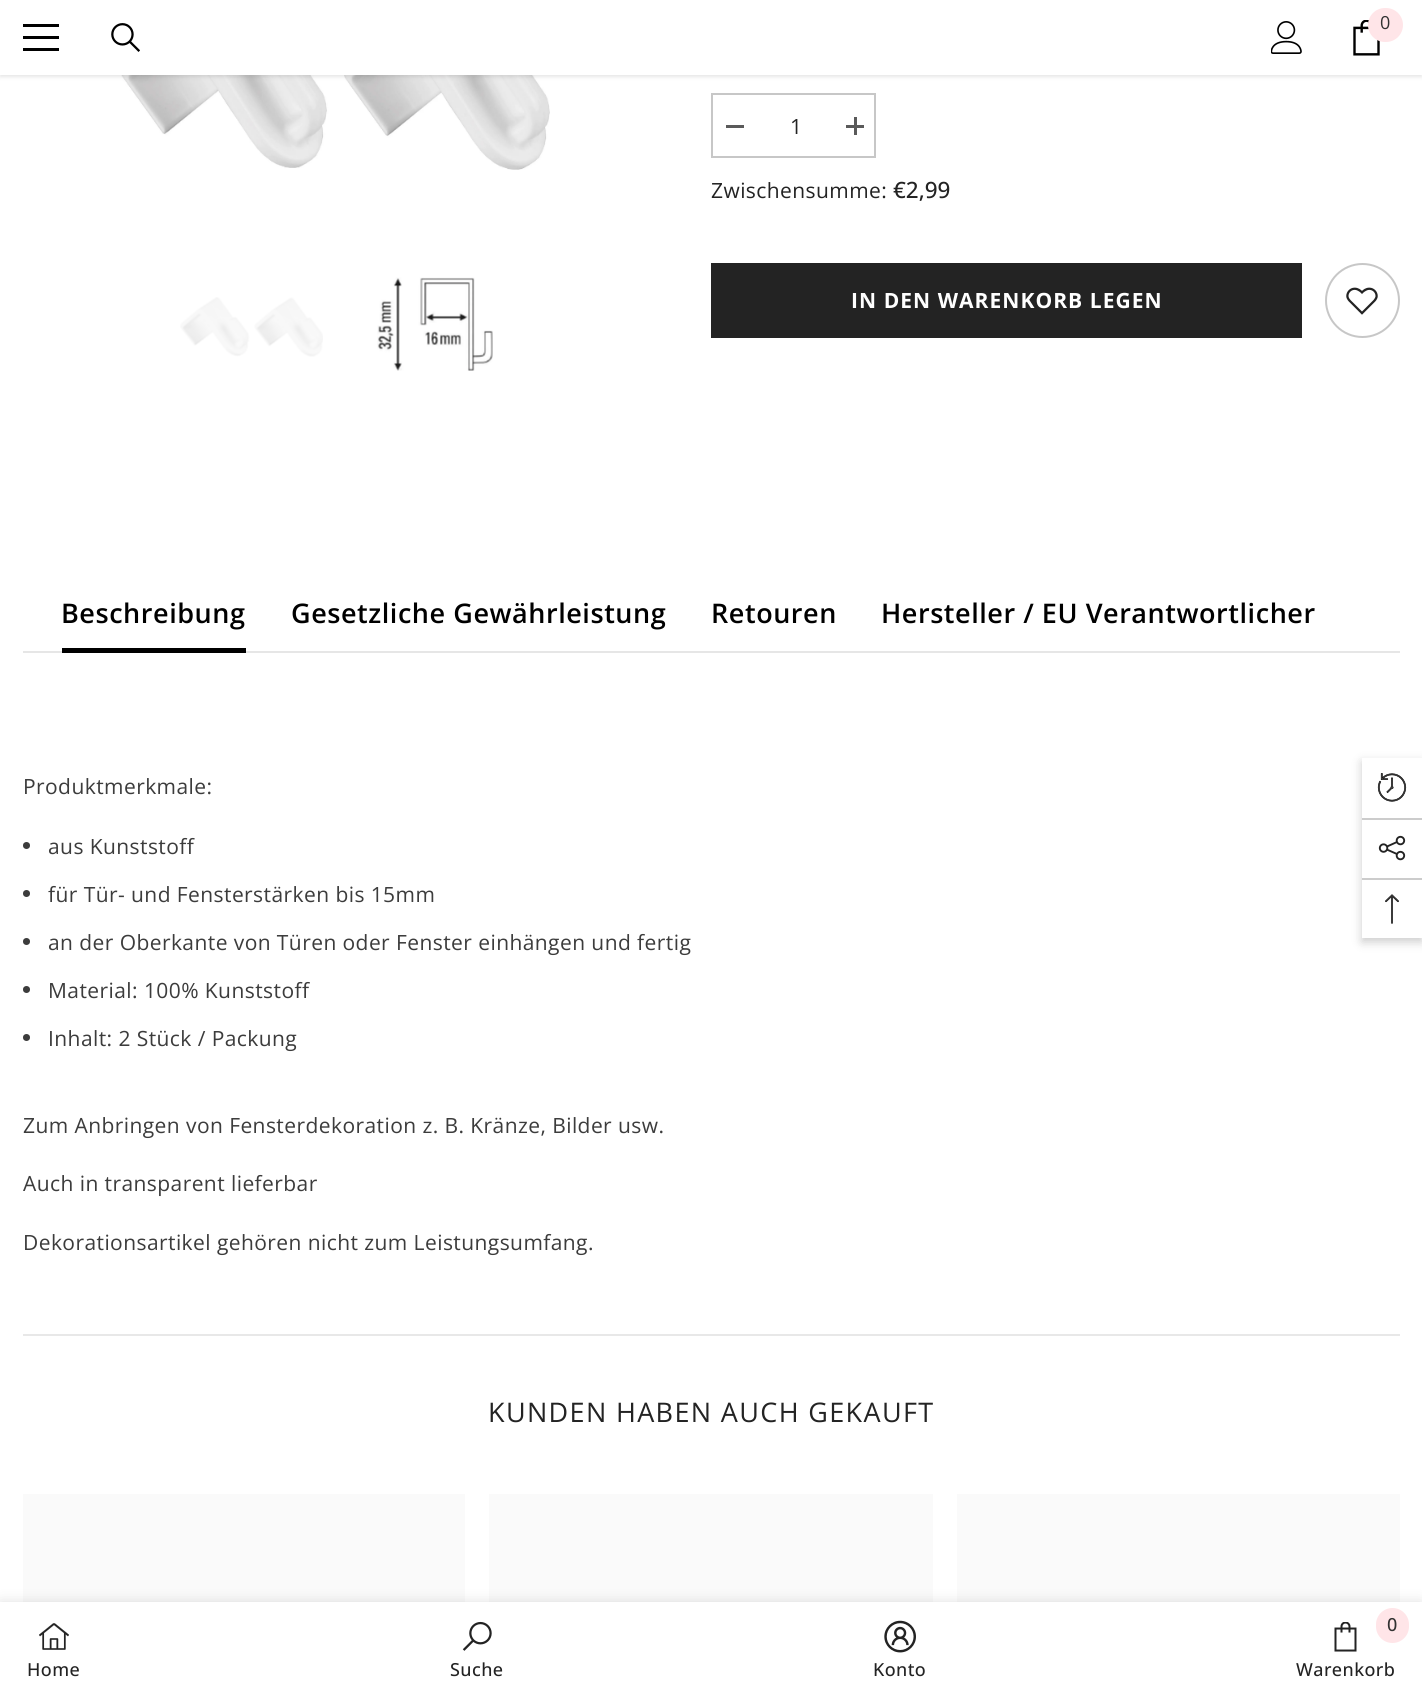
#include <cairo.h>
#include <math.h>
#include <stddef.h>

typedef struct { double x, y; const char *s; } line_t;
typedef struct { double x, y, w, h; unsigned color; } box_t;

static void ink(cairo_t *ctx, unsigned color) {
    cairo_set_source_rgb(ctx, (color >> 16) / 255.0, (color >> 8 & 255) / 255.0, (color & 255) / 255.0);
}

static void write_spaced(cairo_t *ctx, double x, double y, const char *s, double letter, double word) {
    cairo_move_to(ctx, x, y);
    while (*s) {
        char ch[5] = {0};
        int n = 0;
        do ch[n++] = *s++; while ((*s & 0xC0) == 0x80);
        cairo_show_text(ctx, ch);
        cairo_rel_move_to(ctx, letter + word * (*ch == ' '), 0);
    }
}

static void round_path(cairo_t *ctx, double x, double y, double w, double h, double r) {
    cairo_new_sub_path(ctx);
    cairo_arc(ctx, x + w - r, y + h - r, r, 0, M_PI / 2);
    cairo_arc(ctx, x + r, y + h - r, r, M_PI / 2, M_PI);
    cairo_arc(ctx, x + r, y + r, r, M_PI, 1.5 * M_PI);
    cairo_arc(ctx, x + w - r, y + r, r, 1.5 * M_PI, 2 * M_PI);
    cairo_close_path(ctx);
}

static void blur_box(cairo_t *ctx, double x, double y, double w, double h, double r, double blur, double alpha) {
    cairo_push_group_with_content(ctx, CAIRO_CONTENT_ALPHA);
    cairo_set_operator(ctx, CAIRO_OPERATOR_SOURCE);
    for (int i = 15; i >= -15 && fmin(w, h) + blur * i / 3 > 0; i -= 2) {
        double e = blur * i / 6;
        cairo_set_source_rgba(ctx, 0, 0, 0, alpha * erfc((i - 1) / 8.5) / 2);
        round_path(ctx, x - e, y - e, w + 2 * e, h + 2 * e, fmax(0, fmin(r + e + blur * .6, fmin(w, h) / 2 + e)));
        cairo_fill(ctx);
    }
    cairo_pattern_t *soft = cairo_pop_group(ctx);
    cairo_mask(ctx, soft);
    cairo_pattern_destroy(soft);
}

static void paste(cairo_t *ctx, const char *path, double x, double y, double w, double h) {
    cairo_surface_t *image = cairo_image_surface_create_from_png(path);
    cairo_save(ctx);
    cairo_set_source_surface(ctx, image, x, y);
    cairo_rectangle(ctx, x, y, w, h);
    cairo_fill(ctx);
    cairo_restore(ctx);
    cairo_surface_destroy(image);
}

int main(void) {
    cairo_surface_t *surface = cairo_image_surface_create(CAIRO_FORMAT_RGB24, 1422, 1695);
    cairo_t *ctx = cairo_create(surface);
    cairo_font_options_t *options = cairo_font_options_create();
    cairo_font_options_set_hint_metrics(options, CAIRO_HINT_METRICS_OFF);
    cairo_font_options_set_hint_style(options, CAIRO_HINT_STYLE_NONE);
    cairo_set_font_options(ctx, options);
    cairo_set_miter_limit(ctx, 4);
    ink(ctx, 0xFFFFFF);
    cairo_paint(ctx);
    paste(ctx, "media/4.png", 121, 75, 429, 95);
    ink(ctx, 0x000000);
    blur_box(ctx, 0, 2, 1422, 75, 0, 2, 0.1);
    {
        static const box_t items[] = {
            {0, 0, 1422, 75, 0xFFFFFF},
            {23, 36, 36, 3, 0x000000},
            {23, 24, 36, 3, 0x000000},
            {23, 48, 36, 3, 0x000000},
        };
        for (size_t i = 0; i < sizeof items / sizeof *items; i++) {
            ink(ctx, items[i].color);
            cairo_rectangle(ctx, items[i].x, items[i].y, items[i].w, items[i].h);
            cairo_fill(ctx);
        }
    }
    paste(ctx, "media/1.png", 111, 23, 29, 29);
    paste(ctx, "media/2.png", 1271, 21, 31, 33);
    paste(ctx, "media/3.png", 1353, 20, 27, 36);
    ink(ctx, 0xFFE5E8);
    round_path(ctx, 1368, 8, 35, 34, 17);
    cairo_fill(ctx);
    cairo_select_font_face(ctx, "Open Sans", CAIRO_FONT_SLANT_NORMAL, CAIRO_FONT_WEIGHT_NORMAL);
    cairo_set_font_size(ctx, 18);
    ink(ctx, 0x323232);
    cairo_move_to(ctx, 1380, 29);
    cairo_show_text(ctx, "0");
    paste(ctx, "media/5.png", 180, 297, 143, 60);
    paste(ctx, "media/6.png", 377, 277, 116, 94);
    cairo_rectangle(ctx, 712, 94, 163, 63);
    ink(ctx, 0xC7C7C7);
    cairo_stroke(ctx);
    ink(ctx, 0x5A5A5A);
    cairo_rectangle(ctx, 726, 125, 18, 3);
    cairo_fill(ctx);
    cairo_set_font_size(ctx, 21);
    ink(ctx, 0x232323);
    write_spaced(ctx, 790, 134, "1", 0.42, 0);
    ink(ctx, 0x5A5A5A);
    cairo_rectangle(ctx, 846, 125, 18, 3);
    cairo_fill(ctx);
    cairo_rectangle(ctx, 854, 117, 3, 18);
    cairo_fill(ctx);
    ink(ctx, 0x232323);
    write_spaced(ctx, 711, 198, "Zwischensumme:", 0.42, 0);
    cairo_select_font_face(ctx, "Open Sans Medium", CAIRO_FONT_SLANT_NORMAL, CAIRO_FONT_WEIGHT_NORMAL);
    cairo_set_font_size(ctx, 22.5);
    cairo_move_to(ctx, 893, 198);
    cairo_show_text(ctx, "€2,99");
    cairo_rectangle(ctx, 711, 263, 591, 75);
    cairo_fill(ctx);
    cairo_select_font_face(ctx, "Open Sans", CAIRO_FONT_SLANT_NORMAL, CAIRO_FONT_WEIGHT_BOLD);
    cairo_set_font_size(ctx, 21);
    ink(ctx, 0xFFFFFF);
    write_spaced(ctx, 851, 308, "IN DEN WARENKORB LEGEN", 1.05, 0);
    cairo_new_path(ctx);
    cairo_arc(ctx, 1362.5, 300.5, 36.5, 0, 2 * M_PI);
    ink(ctx, 0xC7C7C7);
    cairo_stroke(ctx);
    paste(ctx, "media/7.png", 1346, 287, 32, 28);
    ink(ctx, 0xE6E6E6);
    cairo_rectangle(ctx, 23, 651, 1377, 2);
    cairo_fill(ctx);
    cairo_select_font_face(ctx, "Open Sans SemiBold", CAIRO_FONT_SLANT_NORMAL, CAIRO_FONT_WEIGHT_NORMAL);
    cairo_set_font_size(ctx, 27);
    ink(ctx, 0x000000);
    write_spaced(ctx, 61, 623, "Beschreibung", 0.55, 0);
    cairo_rectangle(ctx, 62, 648, 184, 5);
    cairo_fill(ctx);
    {
        static const line_t items[] = {
            {291, 623, "Gesetzliche Gewährleistung"},
            {711, 623, "Retouren"},
            {881, 623, "Hersteller / EU Verantwortlicher"},
        };
        for (size_t i = 0; i < sizeof items / sizeof *items; i++) {
            write_spaced(ctx, items[i].x, items[i].y, items[i].s, 0.55, 0);
        }
    }
    cairo_select_font_face(ctx, "Open Sans", CAIRO_FONT_SLANT_NORMAL, CAIRO_FONT_WEIGHT_NORMAL);
    cairo_set_font_size(ctx, 21);
    ink(ctx, 0x3C3C3C);
    write_spaced(ctx, 23, 794, "Produktmerkmale:", 0.42, 0);
    cairo_new_path(ctx);
    cairo_arc(ctx, 26.5, 845.5, 3.5, 0, 2 * M_PI);
    cairo_fill(ctx);
    write_spaced(ctx, 48, 854, "aus Kunststoff", 0.42, 0);
    cairo_new_path(ctx);
    cairo_arc(ctx, 26.5, 893.5, 3.5, 0, 2 * M_PI);
    cairo_fill(ctx);
    write_spaced(ctx, 48, 902, "für Tür- und Fensterstärken bis 15mm", 0.42, 0);
    cairo_new_path(ctx);
    cairo_arc(ctx, 26.5, 941.5, 3.5, 0, 2 * M_PI);
    cairo_fill(ctx);
    write_spaced(ctx, 48, 950, "an der Oberkante von Türen oder Fenster einhängen und fertig", 0.42, 0);
    cairo_new_path(ctx);
    cairo_arc(ctx, 26.5, 989.5, 3.5, 0, 2 * M_PI);
    cairo_fill(ctx);
    write_spaced(ctx, 48, 998, "Material: 100% Kunststoff", 0.42, 0);
    cairo_new_path(ctx);
    cairo_arc(ctx, 26.5, 1037.5, 3.5, 0, 2 * M_PI);
    cairo_fill(ctx);
    {
        static const line_t items[] = {
            {48, 1046, "Inhalt: 2 Stück / Packung"},
            {23, 1133, "Zum Anbringen von Fensterdekoration z. B. Kränze, Bilder usw."},
            {23, 1191, "Auch in transparent lieferbar"},
            {23, 1250, "Dekorationsartikel gehören nicht zum Leistungsumfang."},
        };
        for (size_t i = 0; i < sizeof items / sizeof *items; i++) {
            write_spaced(ctx, items[i].x, items[i].y, items[i].s, 0.42, 0);
        }
    }
    ink(ctx, 0xE8E8E8);
    cairo_rectangle(ctx, 23, 1334, 1377, 2);
    cairo_fill(ctx);
    cairo_set_font_size(ctx, 27);
    ink(ctx, 0x232323);
    write_spaced(ctx, 488, 1422, "KUNDEN HABEN AUCH GEKAUFT", 1.35, 0);
    {
        static const box_t items[] = {
            {23, 1494, 442, 108, 0xFAFAFA},
            {489, 1494, 444, 108, 0xFAFAFA},
            {957, 1494, 443, 108, 0xFAFAFA},
        };
        for (size_t i = 0; i < sizeof items / sizeof *items; i++) {
            ink(ctx, items[i].color);
            cairo_rectangle(ctx, items[i].x, items[i].y, items[i].w, items[i].h);
            cairo_fill(ctx);
        }
    }
    ink(ctx, 0x000000);
    blur_box(ctx, 0, 1602, 1422, 93, 0, 7, 0.12);
    ink(ctx, 0xFFFFFF);
    cairo_rectangle(ctx, 0, 1602, 1422, 93);
    cairo_fill(ctx);
    paste(ctx, "media/8.png", 39, 1623, 30, 27);
    cairo_select_font_face(ctx, "Open Sans Medium", CAIRO_FONT_SLANT_NORMAL, CAIRO_FONT_WEIGHT_NORMAL);
    cairo_set_font_size(ctx, 18);
    ink(ctx, 0x232323);
    write_spaced(ctx, 27, 1676, "Home", 0.42, 0);
    paste(ctx, "media/9.png", 462, 1621, 30, 30);
    write_spaced(ctx, 450, 1676, "Suche", 0.42, 0);
    paste(ctx, "media/10.png", 884, 1620, 32, 33);
    write_spaced(ctx, 873, 1676, "Konto", 0.42, 0);
    paste(ctx, "media/11.png", 1334, 1622, 23, 30);
    ink(ctx, 0xFFE5E8);
    round_path(ctx, 1376, 1608, 33, 35, 16.5);
    cairo_fill(ctx);
    ink(ctx, 0x323232);
    cairo_move_to(ctx, 1387, 1631);
    cairo_show_text(ctx, "0");
    ink(ctx, 0x232323);
    write_spaced(ctx, 1296, 1676, "Warenkorb", 0.42, 0);
    ink(ctx, 0x000000);
    blur_box(ctx, 1362, 762, 60, 180, 0, 5, 0.2);
    ink(ctx, 0xFFFFFF);
    cairo_rectangle(ctx, 1362, 758, 60, 180);
    cairo_fill(ctx);
    paste(ctx, "media/12.png", 1377, 773, 30, 29);
    ink(ctx, 0xCCCCCC);
    cairo_rectangle(ctx, 1362, 818, 60, 2);
    cairo_fill(ctx);
    paste(ctx, "media/13.png", 1378, 835, 28, 26);
    cairo_rectangle(ctx, 1362, 878, 60, 2);
    cairo_fill(ctx);
    paste(ctx, "media/14.png", 1385, 894, 14, 30);
    cairo_surface_write_to_png(surface, "image.png");
    cairo_font_options_destroy(options);
    cairo_destroy(ctx);
    cairo_surface_destroy(surface);
    return 0;
}
